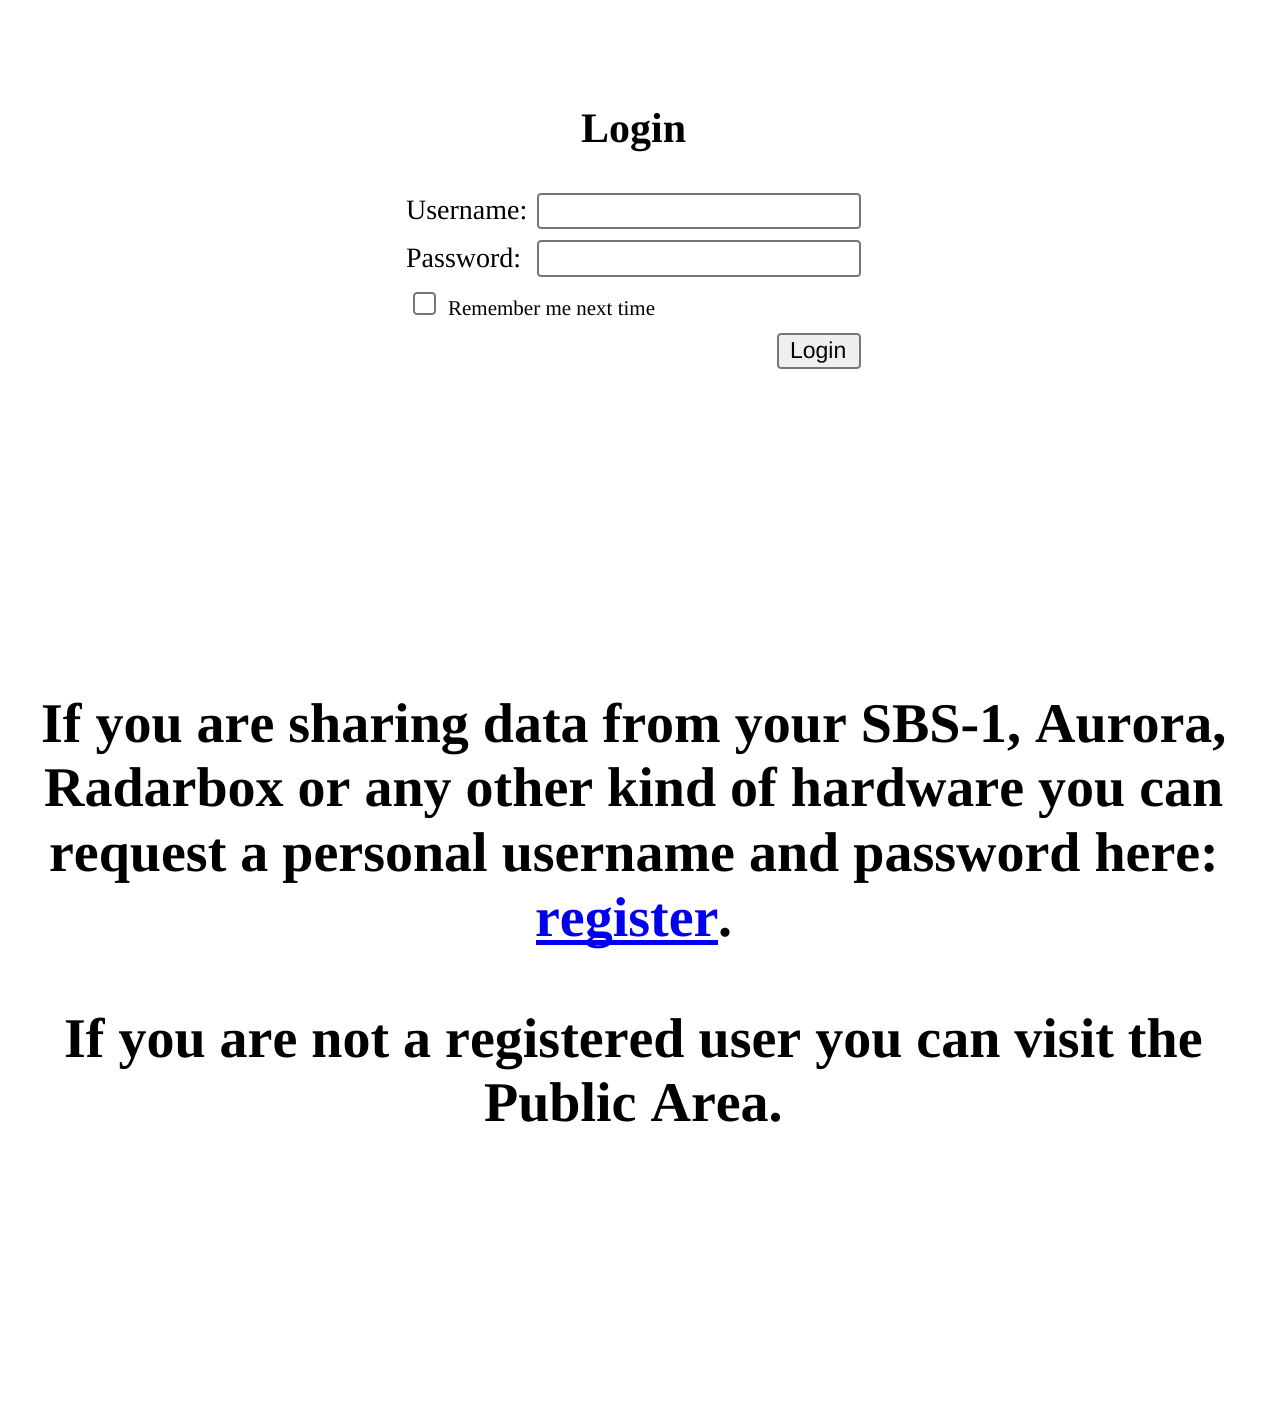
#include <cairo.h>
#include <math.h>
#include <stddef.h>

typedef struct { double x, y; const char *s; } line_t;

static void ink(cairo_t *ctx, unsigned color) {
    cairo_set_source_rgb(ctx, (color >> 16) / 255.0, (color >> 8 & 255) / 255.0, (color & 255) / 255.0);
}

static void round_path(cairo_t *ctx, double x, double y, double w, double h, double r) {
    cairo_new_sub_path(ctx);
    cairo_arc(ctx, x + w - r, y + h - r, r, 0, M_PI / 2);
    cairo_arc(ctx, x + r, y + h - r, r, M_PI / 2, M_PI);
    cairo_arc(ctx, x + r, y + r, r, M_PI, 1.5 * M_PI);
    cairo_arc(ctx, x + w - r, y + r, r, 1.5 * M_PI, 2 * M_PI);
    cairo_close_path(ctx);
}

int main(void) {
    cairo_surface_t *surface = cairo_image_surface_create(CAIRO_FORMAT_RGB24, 1267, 1422);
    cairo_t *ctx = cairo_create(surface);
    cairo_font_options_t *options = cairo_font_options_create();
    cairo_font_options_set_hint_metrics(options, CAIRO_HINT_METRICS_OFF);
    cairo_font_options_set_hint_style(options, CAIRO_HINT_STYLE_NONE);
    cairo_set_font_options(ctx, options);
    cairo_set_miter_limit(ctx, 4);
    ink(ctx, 0xFFFFFF);
    cairo_paint(ctx);
    cairo_select_font_face(ctx, "Liberation Serif", CAIRO_FONT_SLANT_NORMAL, CAIRO_FONT_WEIGHT_BOLD);
    cairo_set_font_size(ctx, 42);
    ink(ctx, 0x000000);
    cairo_move_to(ctx, 581, 142);
    cairo_show_text(ctx, "Login");
    cairo_select_font_face(ctx, "Liberation Serif", CAIRO_FONT_SLANT_NORMAL, CAIRO_FONT_WEIGHT_NORMAL);
    cairo_set_font_size(ctx, 28);
    cairo_move_to(ctx, 406, 219);
    cairo_show_text(ctx, "Username:");
    round_path(ctx, 538, 194, 322, 34, 3);
    ink(ctx, 0x767676);
    cairo_stroke(ctx);
    ink(ctx, 0x000000);
    cairo_move_to(ctx, 406, 267);
    cairo_show_text(ctx, "Password:");
    round_path(ctx, 538, 241, 322, 35, 3);
    ink(ctx, 0x767676);
    cairo_stroke(ctx);
    round_path(ctx, 414, 293, 21, 21, 3);
    cairo_stroke(ctx);
    cairo_set_font_size(ctx, 21);
    ink(ctx, 0x000000);
    cairo_move_to(ctx, 448, 315);
    cairo_show_text(ctx, "Remember me next time");
    ink(ctx, 0xEFEFEF);
    round_path(ctx, 778, 334, 82, 34, 3);
    cairo_fill_preserve(ctx);
    ink(ctx, 0x767676);
    cairo_stroke(ctx);
    cairo_select_font_face(ctx, "Liberation Sans", CAIRO_FONT_SLANT_NORMAL, CAIRO_FONT_WEIGHT_NORMAL);
    cairo_set_font_size(ctx, 23);
    ink(ctx, 0x000000);
    cairo_move_to(ctx, 790, 358);
    cairo_show_text(ctx, "Login");
    cairo_select_font_face(ctx, "Liberation Serif", CAIRO_FONT_SLANT_NORMAL, CAIRO_FONT_WEIGHT_BOLD);
    cairo_set_font_size(ctx, 56);
    {
        static const line_t items[] = {
            {41, 742, "If you are sharing data from your SBS-1, Aurora,"},
            {44, 806, "Radarbox or any other kind of hardware you can"},
            {49, 871, "request a personal username and password here:"},
        };
        for (size_t i = 0; i < sizeof items / sizeof *items; i++) {
            cairo_move_to(ctx, items[i].x, items[i].y);
            cairo_show_text(ctx, items[i].s);
        }
    }
    ink(ctx, 0x0000EE);
    cairo_rectangle(ctx, 536, 940, 182, 5);
    cairo_fill(ctx);
    cairo_move_to(ctx, 535, 936);
    cairo_show_text(ctx, "register");
    ink(ctx, 0x000000);
    {
        static const line_t items[] = {
            {718, 936, "."},
            {64, 1057, "If you are not a registered user you can visit the"},
            {484, 1121, "Public Area."},
        };
        for (size_t i = 0; i < sizeof items / sizeof *items; i++) {
            cairo_move_to(ctx, items[i].x, items[i].y);
            cairo_show_text(ctx, items[i].s);
        }
    }
    cairo_surface_write_to_png(surface, "image.png");
    cairo_font_options_destroy(options);
    cairo_destroy(ctx);
    cairo_surface_destroy(surface);
    return 0;
}
